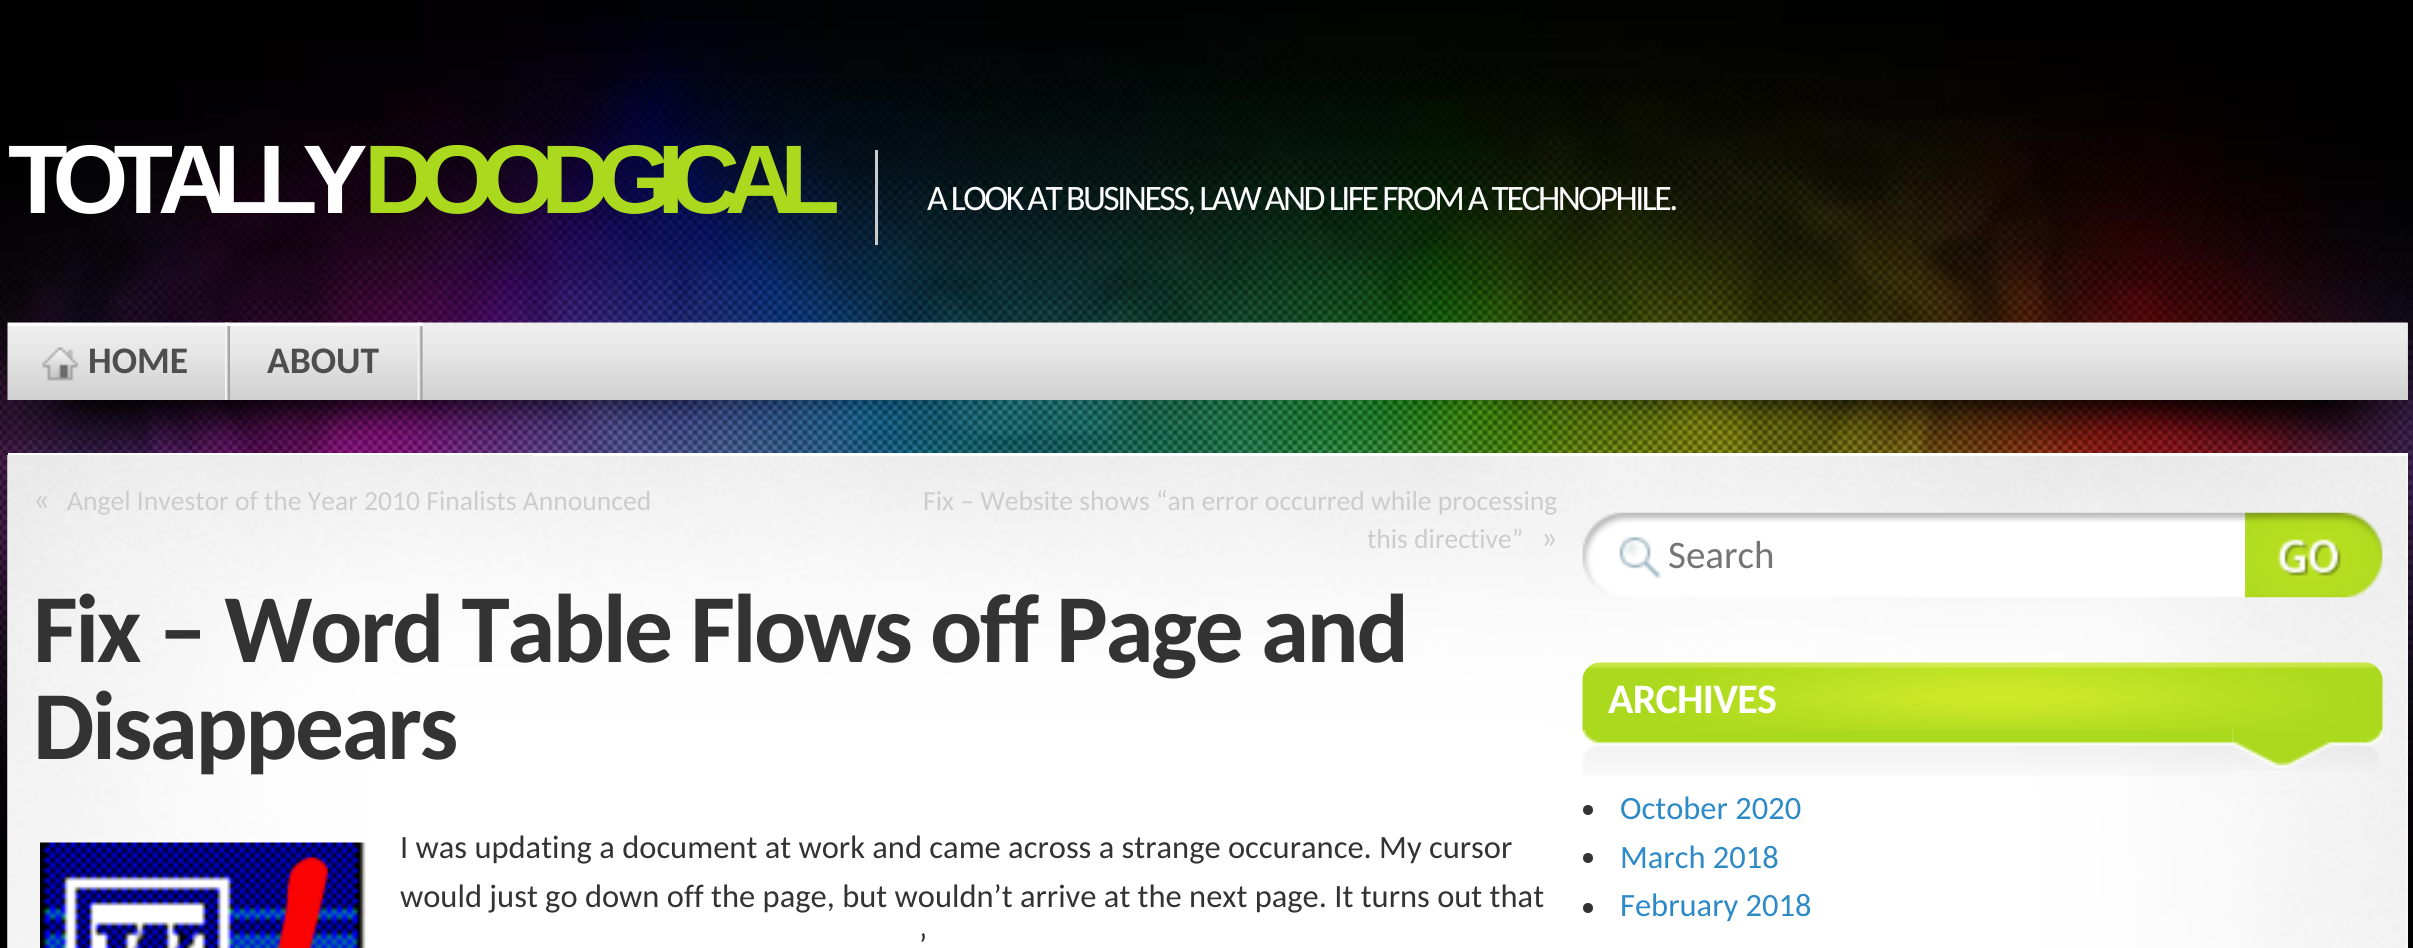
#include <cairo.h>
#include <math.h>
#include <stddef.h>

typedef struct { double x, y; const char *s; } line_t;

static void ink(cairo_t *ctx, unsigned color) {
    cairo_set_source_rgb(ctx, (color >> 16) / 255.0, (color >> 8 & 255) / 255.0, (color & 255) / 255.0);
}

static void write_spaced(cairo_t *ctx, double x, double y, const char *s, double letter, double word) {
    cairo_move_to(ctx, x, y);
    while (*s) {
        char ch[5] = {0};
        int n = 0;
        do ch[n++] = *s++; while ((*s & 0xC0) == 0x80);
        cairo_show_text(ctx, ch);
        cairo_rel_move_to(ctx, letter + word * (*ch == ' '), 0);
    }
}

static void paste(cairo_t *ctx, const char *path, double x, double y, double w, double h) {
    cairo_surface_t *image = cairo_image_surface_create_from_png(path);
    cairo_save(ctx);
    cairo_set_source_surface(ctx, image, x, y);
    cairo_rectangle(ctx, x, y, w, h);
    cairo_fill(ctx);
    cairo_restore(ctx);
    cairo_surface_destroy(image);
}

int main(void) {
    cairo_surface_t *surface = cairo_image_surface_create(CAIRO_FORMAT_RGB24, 2413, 948);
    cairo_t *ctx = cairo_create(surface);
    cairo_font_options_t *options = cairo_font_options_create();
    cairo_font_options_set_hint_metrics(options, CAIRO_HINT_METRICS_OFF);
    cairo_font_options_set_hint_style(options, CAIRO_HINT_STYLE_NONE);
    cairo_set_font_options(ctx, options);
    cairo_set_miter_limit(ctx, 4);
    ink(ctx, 0xFFFFFF);
    cairo_paint(ctx);
    paste(ctx, "media/1.png", 0, 0, 2413, 948);
    cairo_select_font_face(ctx, "Liberation Sans", CAIRO_FONT_SLANT_NORMAL, CAIRO_FONT_WEIGHT_BOLD);
    cairo_set_font_size(ctx, 97.5);
    ink(ctx, 0xFFFFFF);
    write_spaced(ctx, 8, 213, "TOTALLY", -15, 0);
    ink(ctx, 0xABD91D);
    write_spaced(ctx, 364, 213, "DOODGICAL", -15, 0);
    ink(ctx, 0xCCCCCC);
    cairo_rectangle(ctx, 875, 150, 3, 95);
    cairo_fill(ctx);
    cairo_select_font_face(ctx, "Carlito", CAIRO_FONT_SLANT_NORMAL, CAIRO_FONT_WEIGHT_NORMAL);
    cairo_set_font_size(ctx, 35.75);
    ink(ctx, 0xFFFFFF);
    write_spaced(ctx, 927, 210, "A LOOK AT BUSINESS, LAW AND LIFE FROM A TECHNOPHILE.", -2.5, 0);
    paste(ctx, "media/2.png", 18, 400, 989, 52);
    paste(ctx, "media/3.png", 1408, 400, 999, 53);
    ink(ctx, 0xCECECE);
    cairo_rectangle(ctx, 2407, 323, 1, 77);
    cairo_fill(ctx);
    paste(ctx, "media/4.png", 7, 322, 2401, 78);
    paste(ctx, "media/5.png", 225, 322, 5, 78);
    ink(ctx, 0xFFFFFF);
    cairo_rectangle(ctx, 8, 323, 222, 3);
    cairo_fill(ctx);
    paste(ctx, "media/6.png", 42, 347, 37, 34);
    cairo_select_font_face(ctx, "Carlito", CAIRO_FONT_SLANT_NORMAL, CAIRO_FONT_WEIGHT_BOLD);
    cairo_set_font_size(ctx, 37.5);
    ink(ctx, 0x4E4E4E);
    cairo_move_to(ctx, 88, 373);
    cairo_show_text(ctx, "HOME");
    paste(ctx, "media/7.png", 417, 322, 6, 78);
    ink(ctx, 0xFFFFFF);
    cairo_rectangle(ctx, 230, 323, 193, 3);
    cairo_fill(ctx);
    ink(ctx, 0x4E4E4E);
    cairo_move_to(ctx, 267, 373);
    cairo_show_text(ctx, "ABOUT");
    ink(ctx, 0xFFFFFF);
    cairo_rectangle(ctx, 2407, 456, 1, 492);
    cairo_fill(ctx);
    paste(ctx, "media/8.png", 7, 455, 2401, 493);
    cairo_rectangle(ctx, 8, 453, 2400, 3);
    cairo_fill(ctx);
    paste(ctx, "media/9.png", 7, 455, 526, 493);
    cairo_select_font_face(ctx, "Carlito", CAIRO_FONT_SLANT_NORMAL, CAIRO_FONT_WEIGHT_NORMAL);
    cairo_set_font_size(ctx, 32.5);
    ink(ctx, 0xCCCCCC);
    cairo_move_to(ctx, 33, 510);
    cairo_show_text(ctx, "«");
    cairo_set_font_size(ctx, 27.6);
    {
        static const line_t items[] = {
            {67, 510, "Angel Investor of the Year 2010 Finalists Announced"},
            {923, 510, "Fix – Website shows “an error occurred while processing"},
            {1367, 548, "this directive”"},
        };
        for (size_t i = 0; i < sizeof items / sizeof *items; i++) {
            cairo_move_to(ctx, items[i].x, items[i].y);
            cairo_show_text(ctx, items[i].s);
        }
    }
    cairo_set_font_size(ctx, 32.5);
    cairo_move_to(ctx, 1541, 548);
    cairo_show_text(ctx, "»");
    cairo_select_font_face(ctx, "Carlito", CAIRO_FONT_SLANT_NORMAL, CAIRO_FONT_WEIGHT_BOLD);
    cairo_set_font_size(ctx, 97.5);
    ink(ctx, 0x333333);
    write_spaced(ctx, 33, 662, "Fix – Word Table Flows off Page and", -2.5, 0);
    write_spaced(ctx, 33, 759, "Disappears", -2.5, 0);
    paste(ctx, "media/10.png", 40, 842, 326, 106);
    cairo_select_font_face(ctx, "Carlito", CAIRO_FONT_SLANT_NORMAL, CAIRO_FONT_WEIGHT_NORMAL);
    cairo_set_font_size(ctx, 32.5);
    {
        static const line_t items[] = {
            {400, 858, "I was updating a document at work and came across a strange occurance. My cursor"},
            {400, 907, "would just go down off the page, but wouldn’t arrive at the next page. It turns out that"},
            {919, 956, "’"},
        };
        for (size_t i = 0; i < sizeof items / sizeof *items; i++) {
            cairo_move_to(ctx, items[i].x, items[i].y);
            cairo_show_text(ctx, items[i].s);
        }
    }
    paste(ctx, "media/11.png", 1582, 512, 663, 85);
    cairo_set_font_size(ctx, 39);
    ink(ctx, 0x757575);
    cairo_move_to(ctx, 1668, 568);
    cairo_show_text(ctx, "Search");
    paste(ctx, "media/12.png", 2245, 512, 138, 86);
    paste(ctx, "media/13.png", 1582, 662, 801, 68);
    cairo_select_font_face(ctx, "Carlito", CAIRO_FONT_SLANT_NORMAL, CAIRO_FONT_WEIGHT_BOLD);
    cairo_set_font_size(ctx, 42);
    ink(ctx, 0xFFFFFF);
    write_spaced(ctx, 1608, 713, "ARCHIVES", -0.75, 0);
    paste(ctx, "media/14.png", 1582, 730, 651, 46);
    paste(ctx, "media/15.png", 2232, 730, 151, 41);
    ink(ctx, 0x333333);
    cairo_arc(ctx, 1588, 810, 5, 0, 2 * M_PI);
    cairo_fill(ctx);
    cairo_select_font_face(ctx, "Carlito", CAIRO_FONT_SLANT_NORMAL, CAIRO_FONT_WEIGHT_NORMAL);
    cairo_set_font_size(ctx, 32.5);
    ink(ctx, 0x2D8AC7);
    cairo_move_to(ctx, 1620, 819);
    cairo_show_text(ctx, "October 2020");
    ink(ctx, 0x333333);
    cairo_new_path(ctx);
    cairo_arc(ctx, 1588, 858, 5, 0, 2 * M_PI);
    cairo_fill(ctx);
    ink(ctx, 0x2D8AC7);
    cairo_move_to(ctx, 1620, 868);
    cairo_show_text(ctx, "March 2018");
    ink(ctx, 0x333333);
    cairo_new_path(ctx);
    cairo_arc(ctx, 1588, 908, 5, 0, 2 * M_PI);
    cairo_fill(ctx);
    ink(ctx, 0x2D8AC7);
    cairo_move_to(ctx, 1620, 916);
    cairo_show_text(ctx, "February 2018");
    cairo_surface_write_to_png(surface, "image.png");
    cairo_font_options_destroy(options);
    cairo_destroy(ctx);
    cairo_surface_destroy(surface);
    return 0;
}
